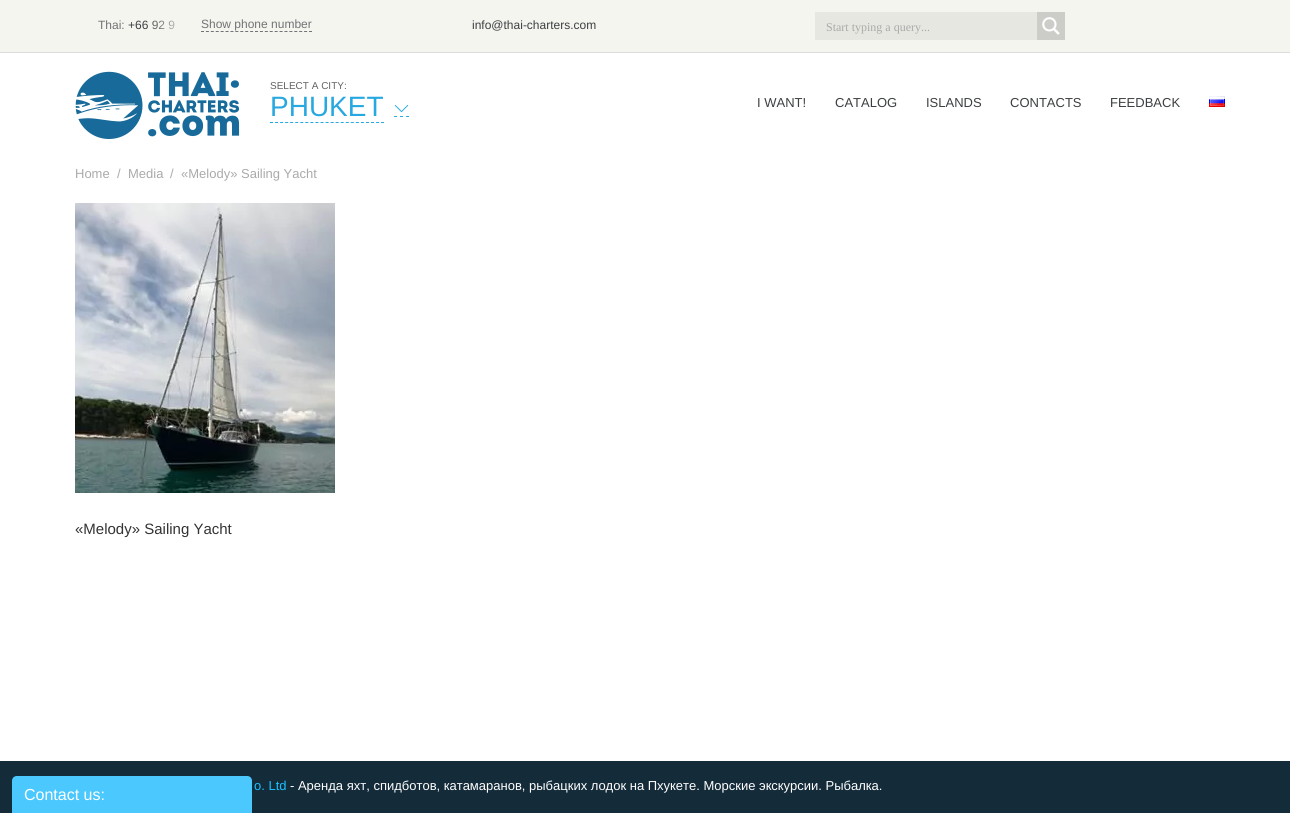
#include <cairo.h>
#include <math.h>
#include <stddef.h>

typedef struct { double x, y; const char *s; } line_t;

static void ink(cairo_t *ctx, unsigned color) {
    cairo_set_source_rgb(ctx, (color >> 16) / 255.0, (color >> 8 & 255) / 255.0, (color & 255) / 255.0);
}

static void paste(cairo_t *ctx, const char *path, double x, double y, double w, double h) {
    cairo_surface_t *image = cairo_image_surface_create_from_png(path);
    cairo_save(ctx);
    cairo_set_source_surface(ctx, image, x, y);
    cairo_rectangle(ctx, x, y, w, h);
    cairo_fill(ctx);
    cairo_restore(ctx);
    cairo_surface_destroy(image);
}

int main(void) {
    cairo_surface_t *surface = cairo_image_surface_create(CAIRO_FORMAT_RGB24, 1290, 813);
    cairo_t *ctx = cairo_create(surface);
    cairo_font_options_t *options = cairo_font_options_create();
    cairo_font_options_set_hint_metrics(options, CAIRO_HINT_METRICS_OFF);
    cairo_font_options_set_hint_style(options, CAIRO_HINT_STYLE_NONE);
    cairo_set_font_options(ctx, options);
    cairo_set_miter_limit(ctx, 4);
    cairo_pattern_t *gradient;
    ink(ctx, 0xFFFFFF);
    cairo_paint(ctx);
    ink(ctx, 0xF4F5EF);
    cairo_rectangle(ctx, 0, 0, 1290, 52);
    cairo_fill(ctx);
    ink(ctx, 0xDDDDDD);
    cairo_rectangle(ctx, 0, 52, 1290, 1);
    cairo_fill(ctx);
    cairo_select_font_face(ctx, "Liberation Sans", CAIRO_FONT_SLANT_NORMAL, CAIRO_FONT_WEIGHT_NORMAL);
    cairo_set_font_size(ctx, 12);
    ink(ctx, 0x717375);
    cairo_move_to(ctx, 98, 29);
    cairo_show_text(ctx, "Thai:");
    ink(ctx, 0x3B3F42);
    cairo_move_to(ctx, 128, 29);
    cairo_show_text(ctx, "+66 92 9");
    gradient = cairo_pattern_create_linear(146, 25, 431, 24);
    cairo_pattern_add_color_stop_rgba(gradient, 0, 0.957, 0.961, 0.937, 0);
    cairo_pattern_add_color_stop_rgba(gradient, 0.15, 0.957, 0.961, 0.937, 1);
    cairo_set_source(ctx, gradient);
    cairo_pattern_destroy(gradient);
    cairo_rectangle(ctx, 147, 20, 28, 10);
    cairo_fill(ctx);
    ink(ctx, 0x717375);
    cairo_move_to(ctx, 201, 28);
    cairo_show_text(ctx, "Show phone number");
    cairo_new_path(ctx);
    cairo_move_to(ctx, 201, 31.5);
    cairo_line_to(ctx, 312, 31.5);
    cairo_set_line_width(ctx, 1);
    cairo_set_dash(ctx, (double[]){3, 1.91}, 2, 0);
    cairo_stroke(ctx);
    ink(ctx, 0x3B3F42);
    cairo_move_to(ctx, 472, 29);
    cairo_show_text(ctx, "info@thai-charters.com");
    ink(ctx, 0xE6E7E1);
    cairo_rectangle(ctx, 815, 12, 222, 28);
    cairo_fill(ctx);
    cairo_select_font_face(ctx, "Liberation Serif", CAIRO_FONT_SLANT_NORMAL, CAIRO_FONT_WEIGHT_NORMAL);
    ink(ctx, 0xAAAAAA);
    cairo_move_to(ctx, 826, 31);
    cairo_show_text(ctx, "Start typing a query...");
    ink(ctx, 0xCCCDC8);
    cairo_rectangle(ctx, 1037, 12, 28, 28);
    cairo_fill(ctx);
    paste(ctx, "media/1.png", 1042, 17, 18, 18);
    paste(ctx, "media/2.png", 75, 71, 165, 68);
    cairo_select_font_face(ctx, "Liberation Sans", CAIRO_FONT_SLANT_NORMAL, CAIRO_FONT_WEIGHT_NORMAL);
    cairo_set_font_size(ctx, 10);
    ink(ctx, 0x616161);
    cairo_move_to(ctx, 270, 89);
    cairo_show_text(ctx, "SELECT A CITY:");
    cairo_set_font_size(ctx, 28);
    ink(ctx, 0x28A8E0);
    cairo_move_to(ctx, 270, 116);
    cairo_show_text(ctx, "PHUKET");
    cairo_new_path(ctx);
    cairo_move_to(ctx, 270, 122.5);
    cairo_line_to(ctx, 384, 122.5);
    cairo_set_dash(ctx, (double[]){3, 2.05}, 2, 0);
    cairo_stroke(ctx);
    cairo_new_path(ctx);
    cairo_move_to(ctx, 394, 116.5);
    cairo_line_to(ctx, 397, 116.5);
    cairo_move_to(ctx, 400, 116.5);
    cairo_line_to(ctx, 403, 116.5);
    cairo_move_to(ctx, 406, 116.5);
    cairo_line_to(ctx, 409, 116.5);
    cairo_set_dash(ctx, NULL, 0, 0);
    cairo_stroke(ctx);
    paste(ctx, "media/3.png", 394, 104, 15, 9);
    cairo_set_font_size(ctx, 13);
    ink(ctx, 0x3B3F42);
    {
        static const line_t items[] = {
            {757, 107, "I WANT!"},
            {835, 107, "CATALOG"},
            {926, 107, "ISLANDS"},
            {1010, 107, "CONTACTS"},
            {1110, 107, "FEEDBACK"},
        };
        for (size_t i = 0; i < sizeof items / sizeof *items; i++) {
            cairo_move_to(ctx, items[i].x, items[i].y);
            cairo_show_text(ctx, items[i].s);
        }
    }
    paste(ctx, "media/4.png", 1209, 96, 16, 11);
    ink(ctx, 0xAAAAAA);
    {
        static const line_t items[] = {
            {75, 178, "Home"},
            {117, 178, "/"},
            {128, 178, "Media"},
            {170, 178, "/"},
            {181, 178, "«Melody» Sailing Yacht"},
        };
        for (size_t i = 0; i < sizeof items / sizeof *items; i++) {
            cairo_move_to(ctx, items[i].x, items[i].y);
            cairo_show_text(ctx, items[i].s);
        }
    }
    paste(ctx, "media/5.png", 75, 203, 260, 290);
    cairo_set_font_size(ctx, 15);
    ink(ctx, 0x333333);
    cairo_move_to(ctx, 75, 534);
    cairo_show_text(ctx, "«Melody» Sailing Yacht");
    ink(ctx, 0x142B3A);
    cairo_rectangle(ctx, 0, 761, 1290, 52);
    cairo_fill(ctx);
    cairo_set_font_size(ctx, 13);
    ink(ctx, 0x1AC1FF);
    cairo_move_to(ctx, 254, 790);
    cairo_show_text(ctx, "o. Ltd");
    ink(ctx, 0xFFFFFF);
    cairo_move_to(ctx, 290, 790);
    cairo_show_text(ctx, "- Аренда яхт, спидботов, катамаранов, рыбацких лодок на Пхукете. Морские экскурсии. Рыбалка.");
    ink(ctx, 0x4BC8FE);
    cairo_new_path(ctx);
    cairo_move_to(ctx, 17, 776);
    cairo_line_to(ctx, 247, 776);
    cairo_curve_to(ctx, 250, 776, 252, 778, 252, 781);
    cairo_line_to(ctx, 252, 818);
    cairo_line_to(ctx, 12, 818);
    cairo_line_to(ctx, 12, 781);
    cairo_curve_to(ctx, 12, 778, 14, 776, 17, 776);
    cairo_close_path(ctx);
    cairo_fill(ctx);
    cairo_set_font_size(ctx, 16);
    ink(ctx, 0xFFFFFF);
    cairo_move_to(ctx, 24, 800);
    cairo_show_text(ctx, "Contact us:");
    cairo_surface_write_to_png(surface, "image.png");
    cairo_font_options_destroy(options);
    cairo_destroy(ctx);
    cairo_surface_destroy(surface);
    return 0;
}
